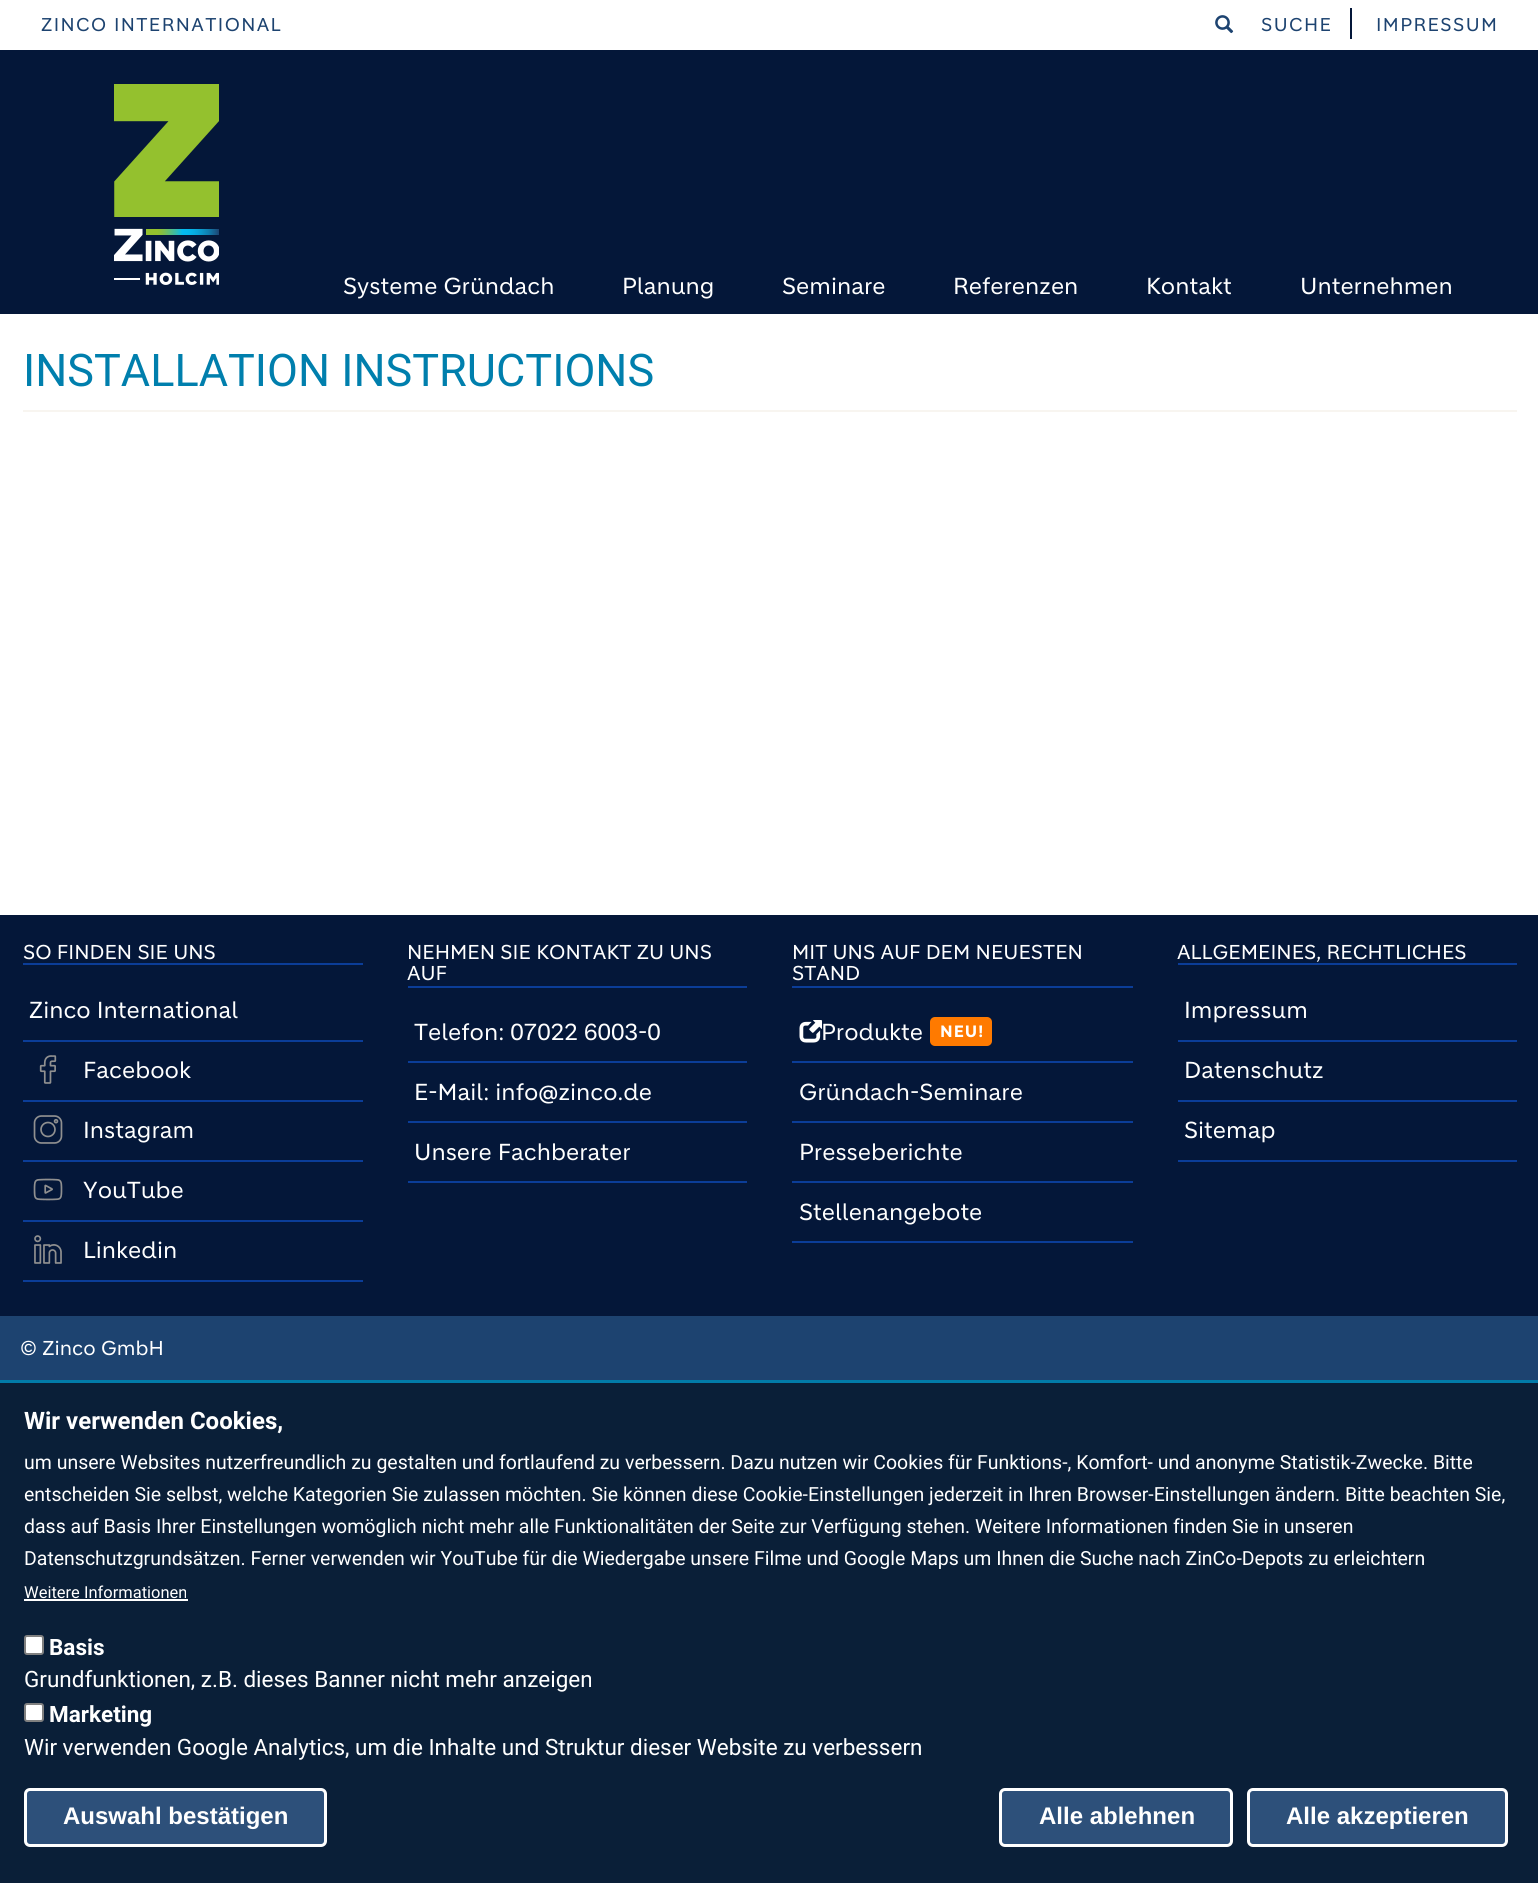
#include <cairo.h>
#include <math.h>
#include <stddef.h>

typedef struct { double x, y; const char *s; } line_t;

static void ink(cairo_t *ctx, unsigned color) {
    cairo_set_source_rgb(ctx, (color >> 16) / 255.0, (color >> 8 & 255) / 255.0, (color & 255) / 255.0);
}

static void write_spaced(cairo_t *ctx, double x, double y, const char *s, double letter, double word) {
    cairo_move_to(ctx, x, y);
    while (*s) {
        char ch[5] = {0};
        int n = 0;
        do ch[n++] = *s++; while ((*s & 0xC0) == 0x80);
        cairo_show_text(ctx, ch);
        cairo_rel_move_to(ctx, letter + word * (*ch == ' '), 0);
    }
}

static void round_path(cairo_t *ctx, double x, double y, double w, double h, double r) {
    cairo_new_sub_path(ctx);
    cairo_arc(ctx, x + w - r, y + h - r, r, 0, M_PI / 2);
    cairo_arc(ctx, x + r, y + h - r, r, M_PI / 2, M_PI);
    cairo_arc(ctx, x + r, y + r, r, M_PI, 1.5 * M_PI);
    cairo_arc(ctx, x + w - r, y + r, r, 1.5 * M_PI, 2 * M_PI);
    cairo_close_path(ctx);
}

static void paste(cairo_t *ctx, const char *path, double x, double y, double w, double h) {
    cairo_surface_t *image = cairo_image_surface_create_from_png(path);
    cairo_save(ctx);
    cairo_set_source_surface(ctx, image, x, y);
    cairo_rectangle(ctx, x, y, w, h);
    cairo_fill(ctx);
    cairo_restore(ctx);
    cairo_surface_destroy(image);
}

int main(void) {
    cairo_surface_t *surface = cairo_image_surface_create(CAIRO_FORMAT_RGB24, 1538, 1883);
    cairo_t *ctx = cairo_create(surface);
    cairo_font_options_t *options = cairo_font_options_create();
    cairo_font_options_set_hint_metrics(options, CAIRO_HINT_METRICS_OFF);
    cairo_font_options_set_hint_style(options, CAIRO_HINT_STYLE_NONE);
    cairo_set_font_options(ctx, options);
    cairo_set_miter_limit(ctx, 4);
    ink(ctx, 0xFFFFFF);
    cairo_paint(ctx);
    ink(ctx, 0x0A1F38);
    cairo_rectangle(ctx, 0, 1383, 1538, 500);
    cairo_fill(ctx);
    ink(ctx, 0x041739);
    cairo_rectangle(ctx, 0, 50, 1538, 264);
    cairo_fill(ctx);
    cairo_select_font_face(ctx, "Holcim", CAIRO_FONT_SLANT_NORMAL, CAIRO_FONT_WEIGHT_NORMAL);
    cairo_set_font_size(ctx, 18);
    ink(ctx, 0x1D4370);
    write_spaced(ctx, 41, 31, "ZINCO INTERNATIONAL", 1.4, 0);
    ink(ctx, 0x041739);
    cairo_rectangle(ctx, 1350, 8, 2, 31);
    cairo_fill(ctx);
    paste(ctx, "media/1.png", 1215, 15, 19, 19);
    ink(ctx, 0x1D4370);
    write_spaced(ctx, 1261, 31, "SUCHE", 1.4, 0);
    write_spaced(ctx, 1376, 31, "IMPRESSUM", 1.4, 0);
    paste(ctx, "media/2.png", 114, 84, 105, 201);
    cairo_set_font_size(ctx, 22.5);
    ink(ctx, 0xFFFFFF);
    {
        static const line_t items[] = {
            {343, 294, "Systeme Gründach"},
            {622, 294, "Planung"},
            {782, 294, "Seminare"},
            {953, 294, "Referenzen"},
            {1146, 294, "Kontakt"},
            {1300, 294, "Unternehmen"},
        };
        for (size_t i = 0; i < sizeof items / sizeof *items; i++) {
            cairo_move_to(ctx, items[i].x, items[i].y);
            cairo_show_text(ctx, items[i].s);
        }
    }
    ink(ctx, 0xF8F5F0);
    cairo_rectangle(ctx, 23, 410, 1494, 2);
    cairo_fill(ctx);
    cairo_select_font_face(ctx, "Roboto", CAIRO_FONT_SLANT_NORMAL, CAIRO_FONT_WEIGHT_NORMAL);
    cairo_set_font_size(ctx, 45);
    ink(ctx, 0x007FAD);
    cairo_move_to(ctx, 23, 386);
    cairo_show_text(ctx, "INSTALLATION INSTRUCTIONS");
    ink(ctx, 0x041739);
    cairo_rectangle(ctx, 0, 915, 1538, 401);
    cairo_fill(ctx);
    ink(ctx, 0x0B3D98);
    cairo_rectangle(ctx, 23, 963, 340, 2);
    cairo_fill(ctx);
    cairo_select_font_face(ctx, "Holcim", CAIRO_FONT_SLANT_NORMAL, CAIRO_FONT_WEIGHT_NORMAL);
    cairo_set_font_size(ctx, 19.5);
    ink(ctx, 0xFFFFFF);
    cairo_move_to(ctx, 23, 959);
    cairo_show_text(ctx, "SO FINDEN SIE UNS");
    ink(ctx, 0x0B3D98);
    cairo_rectangle(ctx, 23, 1040, 340, 2);
    cairo_fill(ctx);
    cairo_set_font_size(ctx, 22.5);
    ink(ctx, 0xFFFFFF);
    cairo_move_to(ctx, 29, 1018);
    cairo_show_text(ctx, "Zinco International");
    ink(ctx, 0x0B3D98);
    cairo_rectangle(ctx, 23, 1100, 340, 2);
    cairo_fill(ctx);
    paste(ctx, "media/3.png", 39, 1055, 18, 29);
    ink(ctx, 0xFFFFFF);
    cairo_move_to(ctx, 83, 1078);
    cairo_show_text(ctx, "Facebook");
    ink(ctx, 0x0B3D98);
    cairo_rectangle(ctx, 23, 1160, 340, 2);
    cairo_fill(ctx);
    paste(ctx, "media/4.png", 33, 1115, 30, 29);
    ink(ctx, 0xFFFFFF);
    cairo_move_to(ctx, 83, 1138);
    cairo_show_text(ctx, "Instagram");
    ink(ctx, 0x0B3D98);
    cairo_rectangle(ctx, 23, 1220, 340, 2);
    cairo_fill(ctx);
    paste(ctx, "media/5.png", 33, 1178, 30, 23);
    ink(ctx, 0xFFFFFF);
    cairo_move_to(ctx, 83, 1198);
    cairo_show_text(ctx, "YouTube");
    ink(ctx, 0x0B3D98);
    cairo_rectangle(ctx, 23, 1280, 340, 2);
    cairo_fill(ctx);
    paste(ctx, "media/6.png", 34, 1235, 28, 29);
    ink(ctx, 0xFFFFFF);
    cairo_move_to(ctx, 83, 1258);
    cairo_show_text(ctx, "Linkedin");
    ink(ctx, 0x0B3D98);
    cairo_rectangle(ctx, 408, 986, 339, 2);
    cairo_fill(ctx);
    cairo_set_font_size(ctx, 19.5);
    ink(ctx, 0xFFFFFF);
    cairo_move_to(ctx, 407, 959);
    cairo_show_text(ctx, "NEHMEN SIE KONTAKT ZU UNS");
    cairo_move_to(ctx, 407, 980);
    cairo_show_text(ctx, "AUF");
    ink(ctx, 0x0B3D98);
    cairo_rectangle(ctx, 408, 1061, 339, 2);
    cairo_fill(ctx);
    cairo_set_font_size(ctx, 22.5);
    ink(ctx, 0xFFFFFF);
    cairo_move_to(ctx, 414, 1040);
    cairo_show_text(ctx, "Telefon: 07022 6003-0");
    ink(ctx, 0x0B3D98);
    cairo_rectangle(ctx, 408, 1121, 339, 2);
    cairo_fill(ctx);
    ink(ctx, 0xFFFFFF);
    cairo_move_to(ctx, 414, 1100);
    cairo_show_text(ctx, "E-Mail: info@zinco.de");
    ink(ctx, 0x0B3D98);
    cairo_rectangle(ctx, 408, 1181, 339, 2);
    cairo_fill(ctx);
    ink(ctx, 0xFFFFFF);
    cairo_move_to(ctx, 414, 1160);
    cairo_show_text(ctx, "Unsere Fachberater");
    ink(ctx, 0x0B3D98);
    cairo_rectangle(ctx, 792, 986, 341, 2);
    cairo_fill(ctx);
    cairo_set_font_size(ctx, 19.5);
    ink(ctx, 0xFFFFFF);
    cairo_move_to(ctx, 792, 959);
    cairo_show_text(ctx, "MIT UNS AUF DEM NEUESTEN");
    cairo_move_to(ctx, 792, 980);
    cairo_show_text(ctx, "STAND");
    ink(ctx, 0x0B3D98);
    cairo_rectangle(ctx, 792, 1061, 341, 2);
    cairo_fill(ctx);
    paste(ctx, "media/7.png", 799, 1020, 23, 23);
    cairo_set_font_size(ctx, 22.5);
    ink(ctx, 0xFFFFFF);
    cairo_move_to(ctx, 821, 1040);
    cairo_show_text(ctx, "Produkte");
    ink(ctx, 0xFF7A00);
    round_path(ctx, 930, 1017, 62, 29, 5);
    cairo_fill(ctx);
    cairo_select_font_face(ctx, "Holcim", CAIRO_FONT_SLANT_NORMAL, CAIRO_FONT_WEIGHT_BOLD);
    cairo_set_font_size(ctx, 16);
    ink(ctx, 0xFFFFFF);
    write_spaced(ctx, 940, 1037, "NEU!", 1, 0);
    ink(ctx, 0x0B3D98);
    cairo_rectangle(ctx, 792, 1121, 341, 2);
    cairo_fill(ctx);
    cairo_select_font_face(ctx, "Holcim", CAIRO_FONT_SLANT_NORMAL, CAIRO_FONT_WEIGHT_NORMAL);
    cairo_set_font_size(ctx, 22.5);
    ink(ctx, 0xFFFFFF);
    cairo_move_to(ctx, 799, 1100);
    cairo_show_text(ctx, "Gründach-Seminare");
    ink(ctx, 0x0B3D98);
    cairo_rectangle(ctx, 792, 1181, 341, 2);
    cairo_fill(ctx);
    ink(ctx, 0xFFFFFF);
    cairo_move_to(ctx, 799, 1160);
    cairo_show_text(ctx, "Presseberichte");
    ink(ctx, 0x0B3D98);
    cairo_rectangle(ctx, 792, 1241, 341, 2);
    cairo_fill(ctx);
    ink(ctx, 0xFFFFFF);
    cairo_move_to(ctx, 799, 1220);
    cairo_show_text(ctx, "Stellenangebote");
    ink(ctx, 0x0B3D98);
    cairo_rectangle(ctx, 1178, 963, 339, 2);
    cairo_fill(ctx);
    cairo_set_font_size(ctx, 19.5);
    ink(ctx, 0xFFFFFF);
    cairo_move_to(ctx, 1177, 959);
    cairo_show_text(ctx, "ALLGEMEINES, RECHTLICHES");
    ink(ctx, 0x0B3D98);
    cairo_rectangle(ctx, 1178, 1040, 339, 2);
    cairo_fill(ctx);
    cairo_set_font_size(ctx, 22.5);
    ink(ctx, 0xFFFFFF);
    cairo_move_to(ctx, 1184, 1018);
    cairo_show_text(ctx, "Impressum");
    ink(ctx, 0x0B3D98);
    cairo_rectangle(ctx, 1178, 1100, 339, 2);
    cairo_fill(ctx);
    ink(ctx, 0xFFFFFF);
    cairo_move_to(ctx, 1184, 1078);
    cairo_show_text(ctx, "Datenschutz");
    ink(ctx, 0x0B3D98);
    cairo_rectangle(ctx, 1178, 1160, 339, 2);
    cairo_fill(ctx);
    ink(ctx, 0xFFFFFF);
    cairo_move_to(ctx, 1184, 1138);
    cairo_show_text(ctx, "Sitemap");
    ink(ctx, 0x1D4370);
    cairo_rectangle(ctx, 0, 1316, 1538, 64);
    cairo_fill(ctx);
    cairo_set_font_size(ctx, 19.5);
    ink(ctx, 0xFFFFFF);
    cairo_move_to(ctx, 20, 1355);
    cairo_show_text(ctx, "© Zinco GmbH");
    ink(ctx, 0x027BA9);
    cairo_rectangle(ctx, 0, 1380, 1538, 3);
    cairo_fill(ctx);
    cairo_select_font_face(ctx, "Roboto", CAIRO_FONT_SLANT_NORMAL, CAIRO_FONT_WEIGHT_BOLD);
    cairo_set_font_size(ctx, 24);
    ink(ctx, 0xFFFFFF);
    cairo_move_to(ctx, 24, 1429);
    cairo_show_text(ctx, "Wir verwenden Cookies,");
    cairo_select_font_face(ctx, "Roboto", CAIRO_FONT_SLANT_NORMAL, CAIRO_FONT_WEIGHT_NORMAL);
    cairo_set_font_size(ctx, 19.5);
    {
        static const line_t items[] = {
            {24, 1469, "um unsere Websites nutzerfreundlich zu gestalten und fortlaufend zu verbessern. Dazu nutzen wir Cookies für Funktions-, Komfort- und anonyme Statistik-Zwecke. Bitte"},
            {24, 1501, "entscheiden Sie selbst, welche Kategorien Sie zulassen möchten. Sie können diese Cookie-Einstellungen jederzeit in Ihren Browser-Einstellungen ändern. Bitte beachten Sie,"},
            {24, 1533, "dass auf Basis Ihrer Einstellungen womöglich nicht mehr alle Funktionalitäten der Seite zur Verfügung stehen. Weitere Informationen finden Sie in unseren"},
            {24, 1565, "Datenschutzgrundsätzen. Ferner verwenden wir YouTube für die Wiedergabe unsere Filme und Google Maps um Ihnen die Suche nach ZinCo-Depots zu erleichtern"},
        };
        for (size_t i = 0; i < sizeof items / sizeof *items; i++) {
            cairo_move_to(ctx, items[i].x, items[i].y);
            cairo_show_text(ctx, items[i].s);
        }
    }
    cairo_set_font_size(ctx, 16.5);
    cairo_move_to(ctx, 24, 1598);
    cairo_show_text(ctx, "Weitere Informationen");
    cairo_rectangle(ctx, 24, 1599, 164, 2);
    cairo_fill(ctx);
    round_path(ctx, 25, 1636, 18, 18, 2);
    cairo_fill_preserve(ctx);
    ink(ctx, 0x808080);
    cairo_stroke(ctx);
    cairo_select_font_face(ctx, "Roboto", CAIRO_FONT_SLANT_NORMAL, CAIRO_FONT_WEIGHT_BOLD);
    cairo_set_font_size(ctx, 22.5);
    ink(ctx, 0xFFFFFF);
    cairo_move_to(ctx, 49, 1655);
    cairo_show_text(ctx, "Basis");
    cairo_select_font_face(ctx, "Roboto", CAIRO_FONT_SLANT_NORMAL, CAIRO_FONT_WEIGHT_NORMAL);
    cairo_move_to(ctx, 24, 1687);
    cairo_show_text(ctx, "Grundfunktionen, z.B. dieses Banner nicht mehr anzeigen");
    round_path(ctx, 25, 1704, 18, 17, 2);
    cairo_fill_preserve(ctx);
    ink(ctx, 0x808080);
    cairo_stroke(ctx);
    cairo_select_font_face(ctx, "Roboto", CAIRO_FONT_SLANT_NORMAL, CAIRO_FONT_WEIGHT_BOLD);
    ink(ctx, 0xFFFFFF);
    cairo_move_to(ctx, 49, 1722);
    cairo_show_text(ctx, "Marketing");
    cairo_select_font_face(ctx, "Roboto", CAIRO_FONT_SLANT_NORMAL, CAIRO_FONT_WEIGHT_NORMAL);
    cairo_move_to(ctx, 24, 1755);
    cairo_show_text(ctx, "Wir verwenden Google Analytics, um die Inhalte und Struktur dieser Website zu verbessern");
    ink(ctx, 0x2D507A);
    round_path(ctx, 25.5, 1789.5, 300, 56, 4.5);
    cairo_fill_preserve(ctx);
    ink(ctx, 0xFFFFFF);
    cairo_set_line_width(ctx, 3);
    cairo_stroke(ctx);
    cairo_select_font_face(ctx, "Liberation Sans", CAIRO_FONT_SLANT_NORMAL, CAIRO_FONT_WEIGHT_BOLD);
    cairo_set_font_size(ctx, 24);
    cairo_move_to(ctx, 63, 1824);
    cairo_show_text(ctx, "Auswahl bestätigen");
    ink(ctx, 0x2D507A);
    round_path(ctx, 1000.5, 1789.5, 231, 56, 4.5);
    cairo_fill_preserve(ctx);
    ink(ctx, 0xFFFFFF);
    cairo_stroke(ctx);
    cairo_move_to(ctx, 1039, 1824);
    cairo_show_text(ctx, "Alle ablehnen");
    ink(ctx, 0x2D507A);
    round_path(ctx, 1248.5, 1789.5, 258, 56, 4.5);
    cairo_fill_preserve(ctx);
    ink(ctx, 0xFFFFFF);
    cairo_stroke(ctx);
    cairo_move_to(ctx, 1286, 1824);
    cairo_show_text(ctx, "Alle akzeptieren");
    cairo_surface_write_to_png(surface, "image.png");
    cairo_font_options_destroy(options);
    cairo_destroy(ctx);
    cairo_surface_destroy(surface);
    return 0;
}
